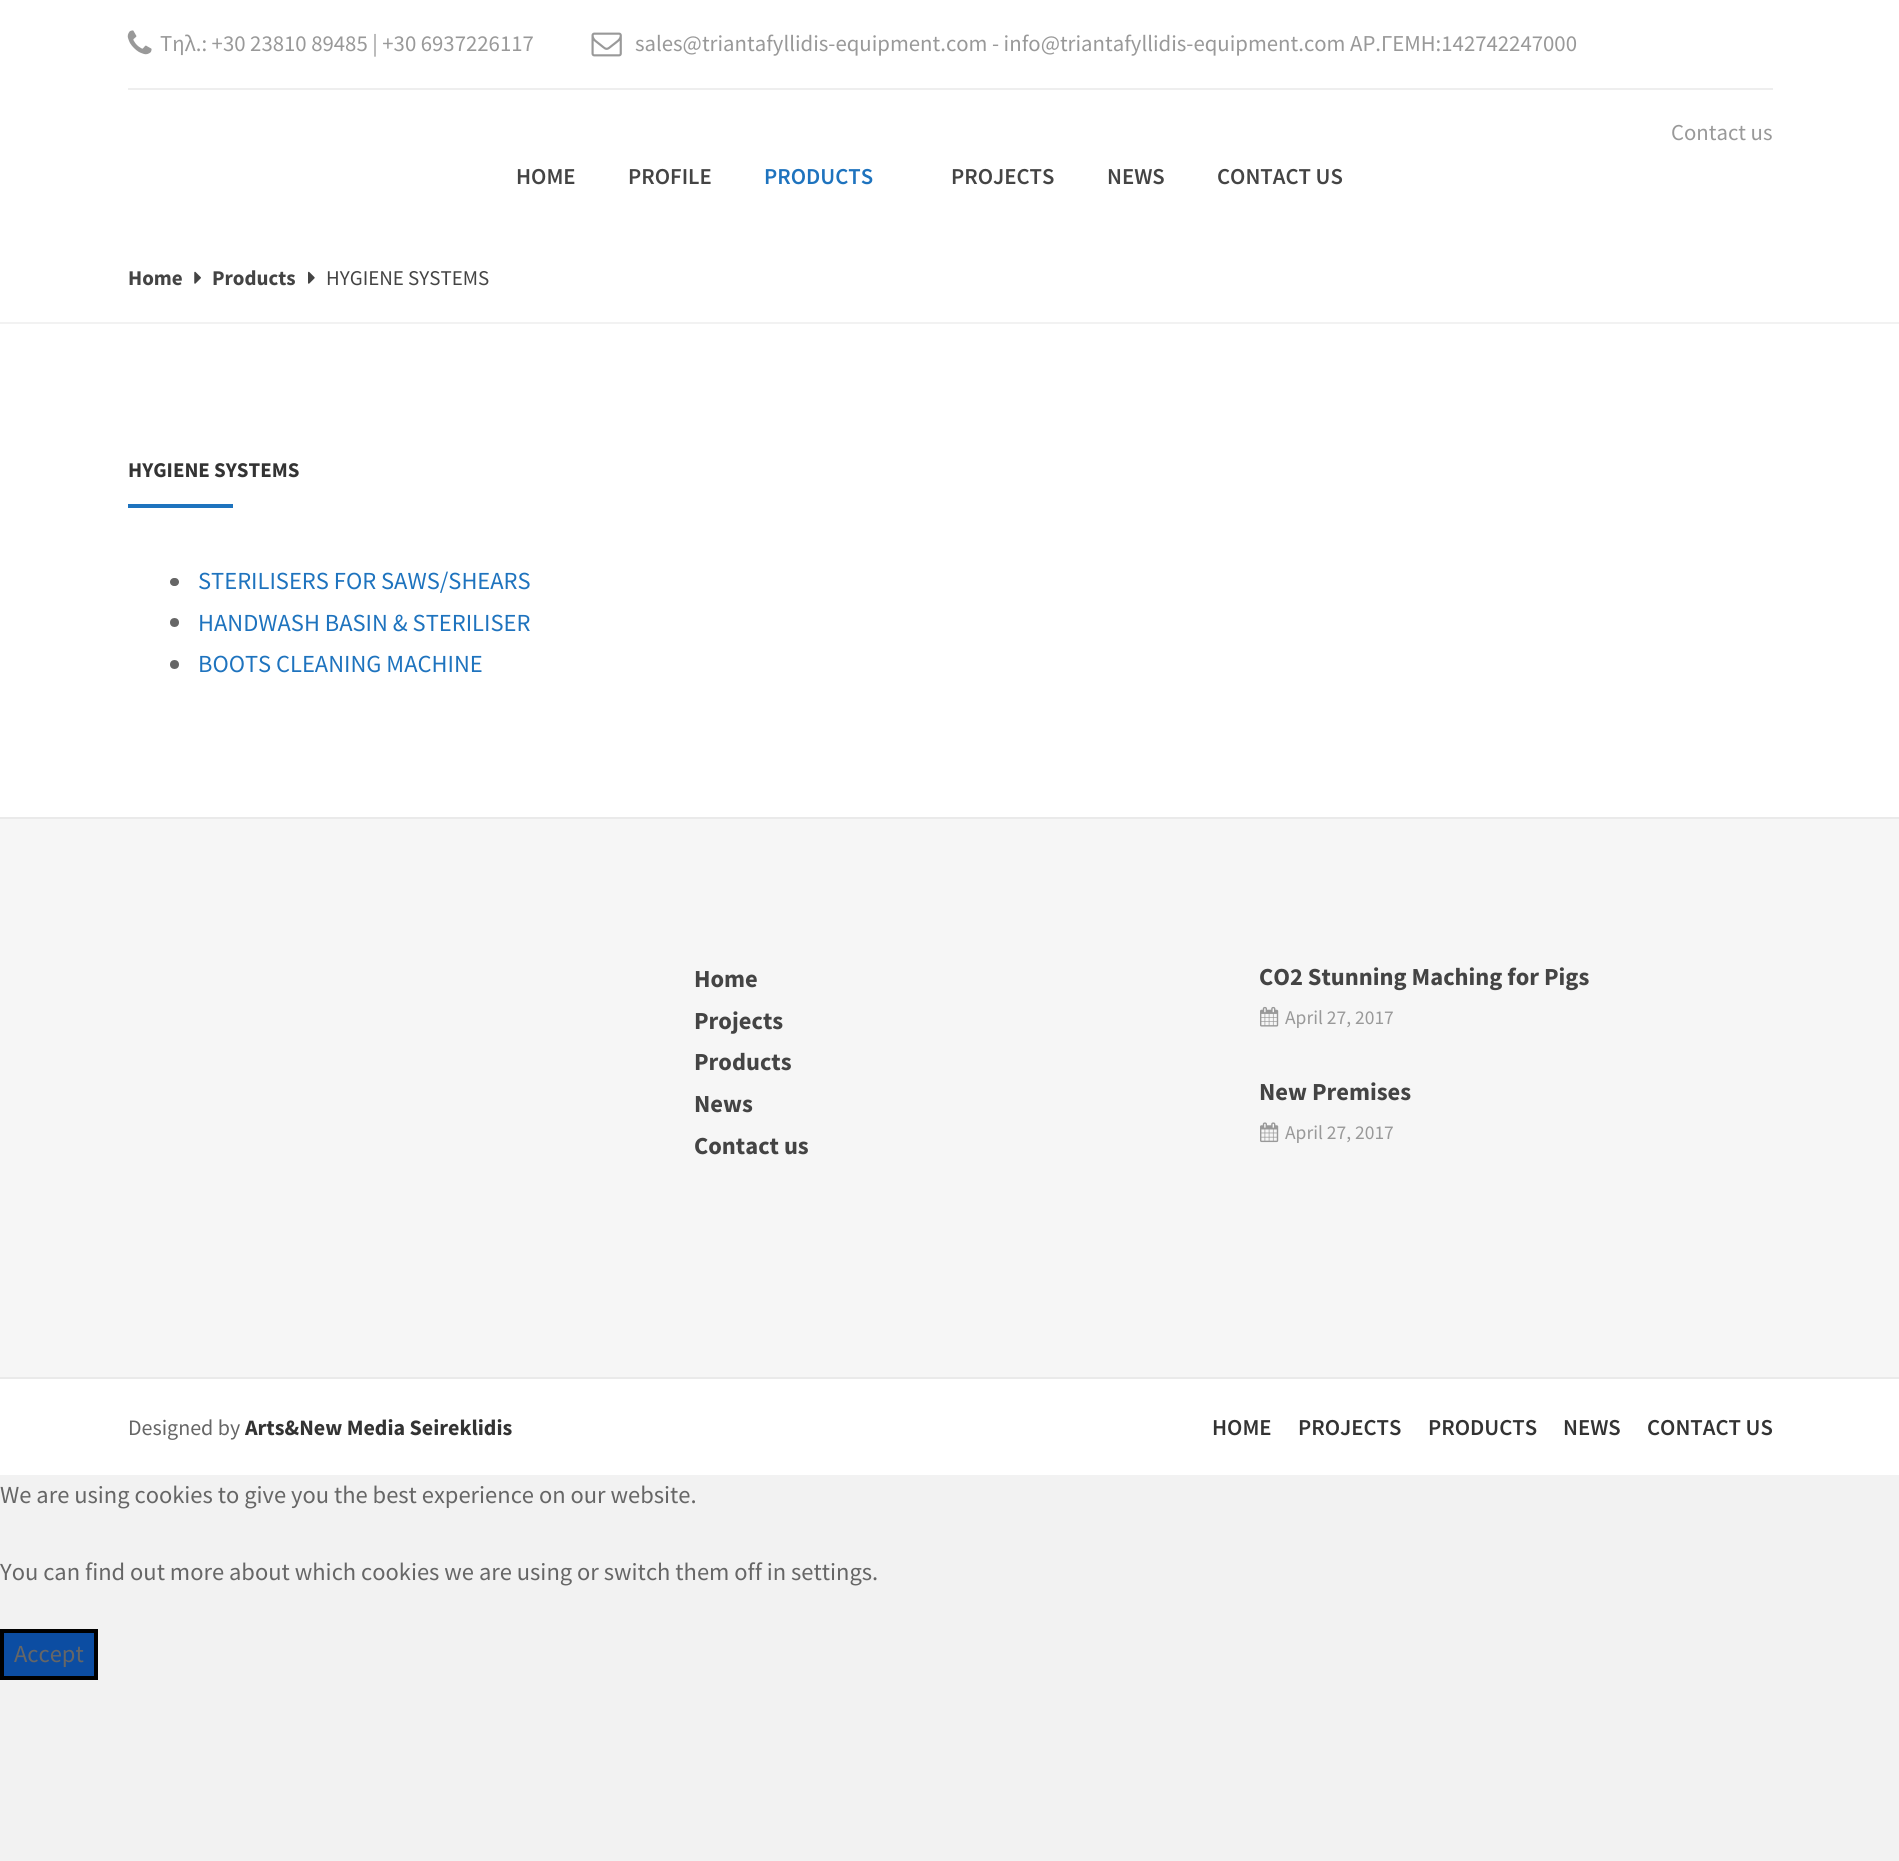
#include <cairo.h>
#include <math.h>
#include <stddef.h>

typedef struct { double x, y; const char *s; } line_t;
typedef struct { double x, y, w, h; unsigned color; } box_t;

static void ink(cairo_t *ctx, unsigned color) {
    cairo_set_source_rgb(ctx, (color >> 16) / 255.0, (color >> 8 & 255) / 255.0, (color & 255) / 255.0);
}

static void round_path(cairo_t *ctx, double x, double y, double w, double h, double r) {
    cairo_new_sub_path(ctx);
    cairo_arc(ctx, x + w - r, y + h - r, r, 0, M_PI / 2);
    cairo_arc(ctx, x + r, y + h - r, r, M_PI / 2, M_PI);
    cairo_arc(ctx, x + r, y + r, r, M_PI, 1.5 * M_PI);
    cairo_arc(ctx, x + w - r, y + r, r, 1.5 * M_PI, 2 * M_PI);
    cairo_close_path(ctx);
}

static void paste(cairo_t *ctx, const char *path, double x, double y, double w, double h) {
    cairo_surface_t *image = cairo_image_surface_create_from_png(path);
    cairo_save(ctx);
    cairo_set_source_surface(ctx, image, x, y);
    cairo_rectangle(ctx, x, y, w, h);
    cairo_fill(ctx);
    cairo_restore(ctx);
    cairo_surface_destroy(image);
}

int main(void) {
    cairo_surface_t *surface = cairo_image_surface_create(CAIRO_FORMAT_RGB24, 1899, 1861);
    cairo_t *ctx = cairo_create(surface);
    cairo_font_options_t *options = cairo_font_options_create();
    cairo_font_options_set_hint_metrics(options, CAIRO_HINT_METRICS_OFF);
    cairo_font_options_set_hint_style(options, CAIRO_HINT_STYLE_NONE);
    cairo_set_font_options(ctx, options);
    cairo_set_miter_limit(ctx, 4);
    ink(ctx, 0xF2F2F2);
    cairo_paint(ctx);
    ink(ctx, 0xFFFFFF);
    cairo_rectangle(ctx, 0, 0, 1899, 1475);
    cairo_fill(ctx);
    ink(ctx, 0xEEEEEE);
    cairo_rectangle(ctx, 128, 88, 1645, 2);
    cairo_fill(ctx);
    paste(ctx, "media/1.png", 127, 30, 25, 25);
    cairo_select_font_face(ctx, "Source Sans Pro", CAIRO_FONT_SLANT_NORMAL, CAIRO_FONT_WEIGHT_NORMAL);
    cairo_set_font_size(ctx, 22.75);
    ink(ctx, 0x999999);
    cairo_move_to(ctx, 160, 51);
    cairo_show_text(ctx, "Τηλ.: +30 23810 89485 | +30 6937226117");
    paste(ctx, "media/2.png", 591, 32, 31, 25);
    cairo_move_to(ctx, 635, 51);
    cairo_show_text(ctx, "sales@triantafyllidis-equipment.com - info@triantafyllidis-equipment.com ΑΡ.ΓΕΜΗ:142742247000");
    cairo_move_to(ctx, 1671, 140);
    cairo_show_text(ctx, "Contact us");
    cairo_select_font_face(ctx, "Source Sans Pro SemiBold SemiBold", CAIRO_FONT_SLANT_NORMAL, CAIRO_FONT_WEIGHT_NORMAL);
    ink(ctx, 0x444444);
    cairo_move_to(ctx, 516, 184);
    cairo_show_text(ctx, "HOME");
    cairo_move_to(ctx, 628, 184);
    cairo_show_text(ctx, "PROFILE");
    ink(ctx, 0x1E73BE);
    cairo_move_to(ctx, 764, 184);
    cairo_show_text(ctx, "PRODUCTS");
    ink(ctx, 0x444444);
    {
        static const line_t items[] = {
            {951, 184, "PROJECTS"},
            {1107, 184, "NEWS"},
            {1217, 184, "CONTACT US"},
        };
        for (size_t i = 0; i < sizeof items / sizeof *items; i++) {
            cairo_move_to(ctx, items[i].x, items[i].y);
            cairo_show_text(ctx, items[i].s);
        }
    }
    ink(ctx, 0xF2F2F2);
    cairo_rectangle(ctx, 0, 322, 1899, 2);
    cairo_fill(ctx);
    cairo_select_font_face(ctx, "Source Sans Pro", CAIRO_FONT_SLANT_NORMAL, CAIRO_FONT_WEIGHT_BOLD);
    cairo_set_font_size(ctx, 21);
    ink(ctx, 0x444444);
    cairo_move_to(ctx, 128, 285);
    cairo_show_text(ctx, "Home");
    paste(ctx, "media/3.png", 194, 271, 7, 13);
    cairo_move_to(ctx, 212, 285);
    cairo_show_text(ctx, "Products");
    paste(ctx, "media/4.png", 308, 271, 7, 13);
    cairo_select_font_face(ctx, "Source Sans Pro", CAIRO_FONT_SLANT_NORMAL, CAIRO_FONT_WEIGHT_NORMAL);
    cairo_move_to(ctx, 326, 285);
    cairo_show_text(ctx, "HYGIENE SYSTEMS");
    cairo_select_font_face(ctx, "Source Sans Pro", CAIRO_FONT_SLANT_NORMAL, CAIRO_FONT_WEIGHT_BOLD);
    ink(ctx, 0x333333);
    cairo_move_to(ctx, 128, 477);
    cairo_show_text(ctx, "HYGIENE SYSTEMS");
    ink(ctx, 0x1E73BE);
    cairo_rectangle(ctx, 128, 504, 105, 4);
    cairo_fill(ctx);
    ink(ctx, 0x666666);
    round_path(ctx, 170, 578, 9, 8, 4);
    cairo_fill(ctx);
    cairo_select_font_face(ctx, "Source Sans Pro", CAIRO_FONT_SLANT_NORMAL, CAIRO_FONT_WEIGHT_NORMAL);
    cairo_set_font_size(ctx, 24.5);
    ink(ctx, 0x1E73BE);
    cairo_move_to(ctx, 198, 589);
    cairo_show_text(ctx, "STERILISERS FOR SAWS/SHEARS");
    ink(ctx, 0x666666);
    cairo_new_path(ctx);
    cairo_arc(ctx, 174.5, 622.5, 4.5, 0, 2 * M_PI);
    cairo_fill(ctx);
    ink(ctx, 0x1E73BE);
    cairo_move_to(ctx, 198, 631);
    cairo_show_text(ctx, "HANDWASH BASIN & STERILISER");
    ink(ctx, 0x666666);
    cairo_new_path(ctx);
    cairo_arc(ctx, 174.5, 664.5, 4.5, 0, 2 * M_PI);
    cairo_fill(ctx);
    ink(ctx, 0x1E73BE);
    cairo_move_to(ctx, 198, 672);
    cairo_show_text(ctx, "BOOTS CLEANING MACHINE");
    {
        static const box_t items[] = {
            {0, 819, 1899, 558, 0xF6F6F6},
            {0, 817, 1899, 2, 0xEAEAEA},
            {0, 1377, 1899, 2, 0xEAEAEA},
        };
        for (size_t i = 0; i < sizeof items / sizeof *items; i++) {
            ink(ctx, items[i].color);
            cairo_rectangle(ctx, items[i].x, items[i].y, items[i].w, items[i].h);
            cairo_fill(ctx);
        }
    }
    cairo_select_font_face(ctx, "Source Sans Pro", CAIRO_FONT_SLANT_NORMAL, CAIRO_FONT_WEIGHT_BOLD);
    ink(ctx, 0x444444);
    {
        static const line_t items[] = {
            {694, 987, "Home"},
            {694, 1029, "Projects"},
            {694, 1070, "Products"},
            {694, 1112, "News"},
            {694, 1154, "Contact us"},
            {1259, 985, "CO2 Stunning Maching for Pigs"},
        };
        for (size_t i = 0; i < sizeof items / sizeof *items; i++) {
            cairo_move_to(ctx, items[i].x, items[i].y);
            cairo_show_text(ctx, items[i].s);
        }
    }
    paste(ctx, "media/5.png", 1260, 1006, 19, 21);
    cairo_select_font_face(ctx, "Source Sans Pro", CAIRO_FONT_SLANT_NORMAL, CAIRO_FONT_WEIGHT_NORMAL);
    cairo_set_font_size(ctx, 19.5);
    ink(ctx, 0x999999);
    cairo_move_to(ctx, 1285, 1024);
    cairo_show_text(ctx, "April 27, 2017");
    cairo_select_font_face(ctx, "Source Sans Pro", CAIRO_FONT_SLANT_NORMAL, CAIRO_FONT_WEIGHT_BOLD);
    cairo_set_font_size(ctx, 24.5);
    ink(ctx, 0x444444);
    cairo_move_to(ctx, 1259, 1100);
    cairo_show_text(ctx, "New Premises");
    paste(ctx, "media/6.png", 1260, 1122, 19, 21);
    cairo_select_font_face(ctx, "Source Sans Pro", CAIRO_FONT_SLANT_NORMAL, CAIRO_FONT_WEIGHT_NORMAL);
    cairo_set_font_size(ctx, 19.5);
    ink(ctx, 0x999999);
    cairo_move_to(ctx, 1285, 1139);
    cairo_show_text(ctx, "April 27, 2017");
    cairo_set_font_size(ctx, 22);
    ink(ctx, 0x666666);
    cairo_move_to(ctx, 128, 1435);
    cairo_show_text(ctx, "Designed by");
    cairo_select_font_face(ctx, "Source Sans Pro", CAIRO_FONT_SLANT_NORMAL, CAIRO_FONT_WEIGHT_BOLD);
    ink(ctx, 0x333333);
    cairo_move_to(ctx, 245, 1435);
    cairo_show_text(ctx, "Arts&New Media Seireklidis");
    cairo_select_font_face(ctx, "Source Sans Pro SemiBold SemiBold", CAIRO_FONT_SLANT_NORMAL, CAIRO_FONT_WEIGHT_NORMAL);
    cairo_set_font_size(ctx, 22.75);
    {
        static const line_t items[] = {
            {1212, 1435, "HOME"},
            {1298, 1435, "PROJECTS"},
            {1428, 1435, "PRODUCTS"},
            {1563, 1435, "NEWS"},
            {1647, 1435, "CONTACT US"},
        };
        for (size_t i = 0; i < sizeof items / sizeof *items; i++) {
            cairo_move_to(ctx, items[i].x, items[i].y);
            cairo_show_text(ctx, items[i].s);
        }
    }
    cairo_select_font_face(ctx, "Source Sans Pro", CAIRO_FONT_SLANT_NORMAL, CAIRO_FONT_WEIGHT_NORMAL);
    cairo_set_font_size(ctx, 24.5);
    ink(ctx, 0x666666);
    cairo_move_to(ctx, 0, 1503);
    cairo_show_text(ctx, "We are using cookies to give you the best experience on our website.");
    cairo_move_to(ctx, 0, 1580);
    cairo_show_text(ctx, "You can find out more about which cookies we are using or switch them off in settings.");
    ink(ctx, 0x0C4DA2);
    cairo_rectangle(ctx, 2, 1631, 94, 47);
    cairo_fill_preserve(ctx);
    ink(ctx, 0x000000);
    cairo_set_line_width(ctx, 4);
    cairo_stroke(ctx);
    ink(ctx, 0x666666);
    cairo_move_to(ctx, 14, 1662);
    cairo_show_text(ctx, "Accept");
    cairo_surface_write_to_png(surface, "image.png");
    cairo_font_options_destroy(options);
    cairo_destroy(ctx);
    cairo_surface_destroy(surface);
    return 0;
}
